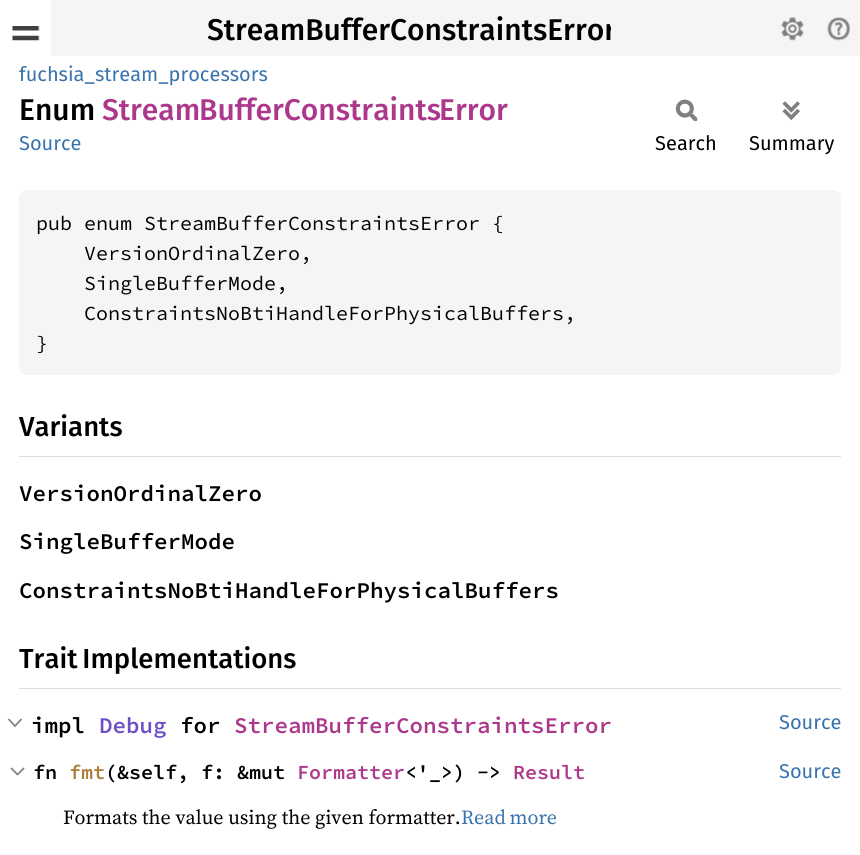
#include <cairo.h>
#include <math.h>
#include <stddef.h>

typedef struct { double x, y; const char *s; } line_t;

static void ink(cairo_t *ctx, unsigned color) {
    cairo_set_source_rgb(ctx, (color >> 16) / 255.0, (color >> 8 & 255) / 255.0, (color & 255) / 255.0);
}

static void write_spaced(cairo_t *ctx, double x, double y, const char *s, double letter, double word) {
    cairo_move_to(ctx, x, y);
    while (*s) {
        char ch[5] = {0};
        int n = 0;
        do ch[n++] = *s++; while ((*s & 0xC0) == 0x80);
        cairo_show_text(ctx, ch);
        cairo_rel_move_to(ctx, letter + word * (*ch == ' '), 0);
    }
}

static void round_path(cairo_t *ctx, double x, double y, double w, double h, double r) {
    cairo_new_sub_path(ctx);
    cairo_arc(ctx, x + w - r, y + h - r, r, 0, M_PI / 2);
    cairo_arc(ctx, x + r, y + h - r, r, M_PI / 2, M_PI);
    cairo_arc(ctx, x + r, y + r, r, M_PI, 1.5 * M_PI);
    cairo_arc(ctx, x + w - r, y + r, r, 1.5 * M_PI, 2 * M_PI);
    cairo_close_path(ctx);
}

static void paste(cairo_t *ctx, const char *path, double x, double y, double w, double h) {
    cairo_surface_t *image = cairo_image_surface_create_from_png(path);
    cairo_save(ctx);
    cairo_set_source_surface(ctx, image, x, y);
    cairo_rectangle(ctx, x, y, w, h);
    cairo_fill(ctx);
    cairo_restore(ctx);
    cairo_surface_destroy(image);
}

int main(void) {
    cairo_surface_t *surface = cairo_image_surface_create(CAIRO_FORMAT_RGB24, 860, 855);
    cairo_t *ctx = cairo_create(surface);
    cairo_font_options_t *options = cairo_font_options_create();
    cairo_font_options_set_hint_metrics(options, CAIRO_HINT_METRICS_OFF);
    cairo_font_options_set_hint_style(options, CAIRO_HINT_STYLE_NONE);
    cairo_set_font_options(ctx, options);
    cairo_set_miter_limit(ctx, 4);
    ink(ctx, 0xFFFFFF);
    cairo_paint(ctx);
    ink(ctx, 0xF5F5F5);
    cairo_rectangle(ctx, 51, 0, 809, 56);
    cairo_fill(ctx);
    paste(ctx, "media/1.png", 12, 26, 28, 15);
    cairo_save(ctx);
    cairo_rectangle(ctx, 208, 8, 403, 41);
    cairo_clip(ctx);
    cairo_select_font_face(ctx, "Fira Sans Medium", CAIRO_FONT_SLANT_NORMAL, CAIRO_FONT_WEIGHT_NORMAL);
    cairo_set_font_size(ctx, 30);
    ink(ctx, 0x000000);
    cairo_move_to(ctx, 207, 40);
    cairo_show_text(ctx, "StreamBufferConstraintsError");
    cairo_restore(ctx);
    paste(ctx, "media/2.png", 781, 17, 23, 24);
    paste(ctx, "media/3.png", 827, 17, 23, 24);
    cairo_select_font_face(ctx, "Fira Sans", CAIRO_FONT_SLANT_NORMAL, CAIRO_FONT_WEIGHT_NORMAL);
    cairo_set_font_size(ctx, 20);
    ink(ctx, 0x3873AD);
    cairo_move_to(ctx, 19, 81);
    cairo_show_text(ctx, "fuchsia_stream_processors");
    cairo_select_font_face(ctx, "Fira Sans Medium", CAIRO_FONT_SLANT_NORMAL, CAIRO_FONT_WEIGHT_NORMAL);
    cairo_set_font_size(ctx, 30);
    ink(ctx, 0x000000);
    cairo_move_to(ctx, 19, 120);
    cairo_show_text(ctx, "Enum");
    ink(ctx, 0xAD378A);
    {
        static const line_t items[] = {
            {102, 120, "Stream"},
            {199, 120, "BufferConstraints"},
            {439, 120, "Error"},
        };
        for (size_t i = 0; i < sizeof items / sizeof *items; i++) {
            cairo_move_to(ctx, items[i].x, items[i].y);
            cairo_show_text(ctx, items[i].s);
        }
    }
    cairo_select_font_face(ctx, "Fira Sans", CAIRO_FONT_SLANT_NORMAL, CAIRO_FONT_WEIGHT_NORMAL);
    cairo_set_font_size(ctx, 20);
    ink(ctx, 0x3873AD);
    cairo_move_to(ctx, 19, 150);
    cairo_show_text(ctx, "Source");
    paste(ctx, "media/4.png", 675, 99, 23, 22);
    ink(ctx, 0x000000);
    cairo_move_to(ctx, 655, 150);
    cairo_show_text(ctx, "Search");
    paste(ctx, "media/5.png", 782, 101, 18, 20);
    cairo_move_to(ctx, 749, 150);
    cairo_show_text(ctx, "Summary");
    ink(ctx, 0xF5F5F5);
    round_path(ctx, 19, 190, 822, 185, 8);
    cairo_fill(ctx);
    cairo_select_font_face(ctx, "Source Code Pro", CAIRO_FONT_SLANT_NORMAL, CAIRO_FONT_WEIGHT_NORMAL);
    ink(ctx, 0x000000);
    {
        static const line_t items[] = {
            {36, 230, "pub enum StreamBufferConstraintsError {"},
            {84, 260, "VersionOrdinalZero,"},
            {84, 290, "SingleBufferMode,"},
            {84, 320, "ConstraintsNoBtiHandleForPhysicalBuffers,"},
            {36, 350, "}"},
        };
        for (size_t i = 0; i < sizeof items / sizeof *items; i++) {
            cairo_move_to(ctx, items[i].x, items[i].y);
            cairo_show_text(ctx, items[i].s);
        }
    }
    ink(ctx, 0xDDDDDD);
    cairo_rectangle(ctx, 19, 456, 822, 1);
    cairo_fill(ctx);
    cairo_select_font_face(ctx, "Fira Sans Medium", CAIRO_FONT_SLANT_NORMAL, CAIRO_FONT_WEIGHT_NORMAL);
    cairo_set_font_size(ctx, 27.5);
    ink(ctx, 0x000000);
    cairo_move_to(ctx, 19, 436);
    cairo_show_text(ctx, "Variants");
    cairo_select_font_face(ctx, "Source Code Pro SemiBold", CAIRO_FONT_SLANT_NORMAL, CAIRO_FONT_WEIGHT_NORMAL);
    cairo_set_font_size(ctx, 22.5);
    {
        static const line_t items[] = {
            {19, 501, "VersionOrdinalZero"},
            {19, 549, "SingleBufferMode"},
            {19, 598, "ConstraintsNoBtiHandleForPhysicalBuffers"},
        };
        for (size_t i = 0; i < sizeof items / sizeof *items; i++) {
            cairo_move_to(ctx, items[i].x, items[i].y);
            cairo_show_text(ctx, items[i].s);
        }
    }
    ink(ctx, 0xDDDDDD);
    cairo_rectangle(ctx, 19, 688, 822, 1);
    cairo_fill(ctx);
    cairo_select_font_face(ctx, "Fira Sans Medium", CAIRO_FONT_SLANT_NORMAL, CAIRO_FONT_WEIGHT_NORMAL);
    cairo_set_font_size(ctx, 27.5);
    ink(ctx, 0x000000);
    write_spaced(ctx, 19, 668, "Trait Implementations", 0, -2);
    cairo_new_path(ctx);
    cairo_move_to(ctx, 8.5, 719);
    cairo_line_to(ctx, 15, 726);
    cairo_line_to(ctx, 21.5, 719);
    ink(ctx, 0x808080);
    cairo_set_line_width(ctx, 1.7);
    cairo_stroke(ctx);
    cairo_select_font_face(ctx, "Source Code Pro SemiBold", CAIRO_FONT_SLANT_NORMAL, CAIRO_FONT_WEIGHT_NORMAL);
    cairo_set_font_size(ctx, 22.5);
    ink(ctx, 0x000000);
    cairo_move_to(ctx, 31, 733);
    cairo_show_text(ctx, "impl");
    ink(ctx, 0x6E4FC9);
    cairo_move_to(ctx, 99, 733);
    cairo_show_text(ctx, "Debug");
    ink(ctx, 0x000000);
    cairo_move_to(ctx, 180, 733);
    cairo_show_text(ctx, "for");
    ink(ctx, 0xAD378A);
    cairo_move_to(ctx, 234, 733);
    cairo_show_text(ctx, "StreamBufferConstraintsError");
    cairo_select_font_face(ctx, "Fira Sans", CAIRO_FONT_SLANT_NORMAL, CAIRO_FONT_WEIGHT_NORMAL);
    cairo_set_font_size(ctx, 20);
    ink(ctx, 0x3873AD);
    cairo_move_to(ctx, 779, 729);
    cairo_show_text(ctx, "Source");
    cairo_new_path(ctx);
    cairo_move_to(ctx, 11, 768);
    cairo_line_to(ctx, 17.5, 774.5);
    cairo_line_to(ctx, 24, 768);
    ink(ctx, 0x808080);
    cairo_stroke(ctx);
    cairo_select_font_face(ctx, "Source Code Pro SemiBold", CAIRO_FONT_SLANT_NORMAL, CAIRO_FONT_WEIGHT_NORMAL);
    ink(ctx, 0x000000);
    cairo_move_to(ctx, 33, 779);
    cairo_show_text(ctx, "fn");
    ink(ctx, 0xAD7C37);
    cairo_move_to(ctx, 69, 779);
    cairo_show_text(ctx, "fmt");
    ink(ctx, 0x000000);
    cairo_move_to(ctx, 105, 779);
    cairo_show_text(ctx, "(&self, f: &mut");
    ink(ctx, 0xAD378A);
    cairo_move_to(ctx, 297, 779);
    cairo_show_text(ctx, "Formatter");
    ink(ctx, 0x000000);
    cairo_move_to(ctx, 405, 779);
    cairo_show_text(ctx, "<'_>) ->");
    ink(ctx, 0xAD378A);
    cairo_move_to(ctx, 513, 779);
    cairo_show_text(ctx, "Result");
    cairo_select_font_face(ctx, "Fira Sans", CAIRO_FONT_SLANT_NORMAL, CAIRO_FONT_WEIGHT_NORMAL);
    ink(ctx, 0x3873AD);
    cairo_move_to(ctx, 779, 778);
    cairo_show_text(ctx, "Source");
    cairo_select_font_face(ctx, "Source Serif 4", CAIRO_FONT_SLANT_NORMAL, CAIRO_FONT_WEIGHT_NORMAL);
    ink(ctx, 0x000000);
    cairo_move_to(ctx, 63, 824);
    cairo_show_text(ctx, "Formats the value using the given formatter.");
    ink(ctx, 0x3873AD);
    write_spaced(ctx, 461, 824, "Read more", 0, -1);
    cairo_surface_write_to_png(surface, "image.png");
    cairo_font_options_destroy(options);
    cairo_destroy(ctx);
    cairo_surface_destroy(surface);
    return 0;
}
